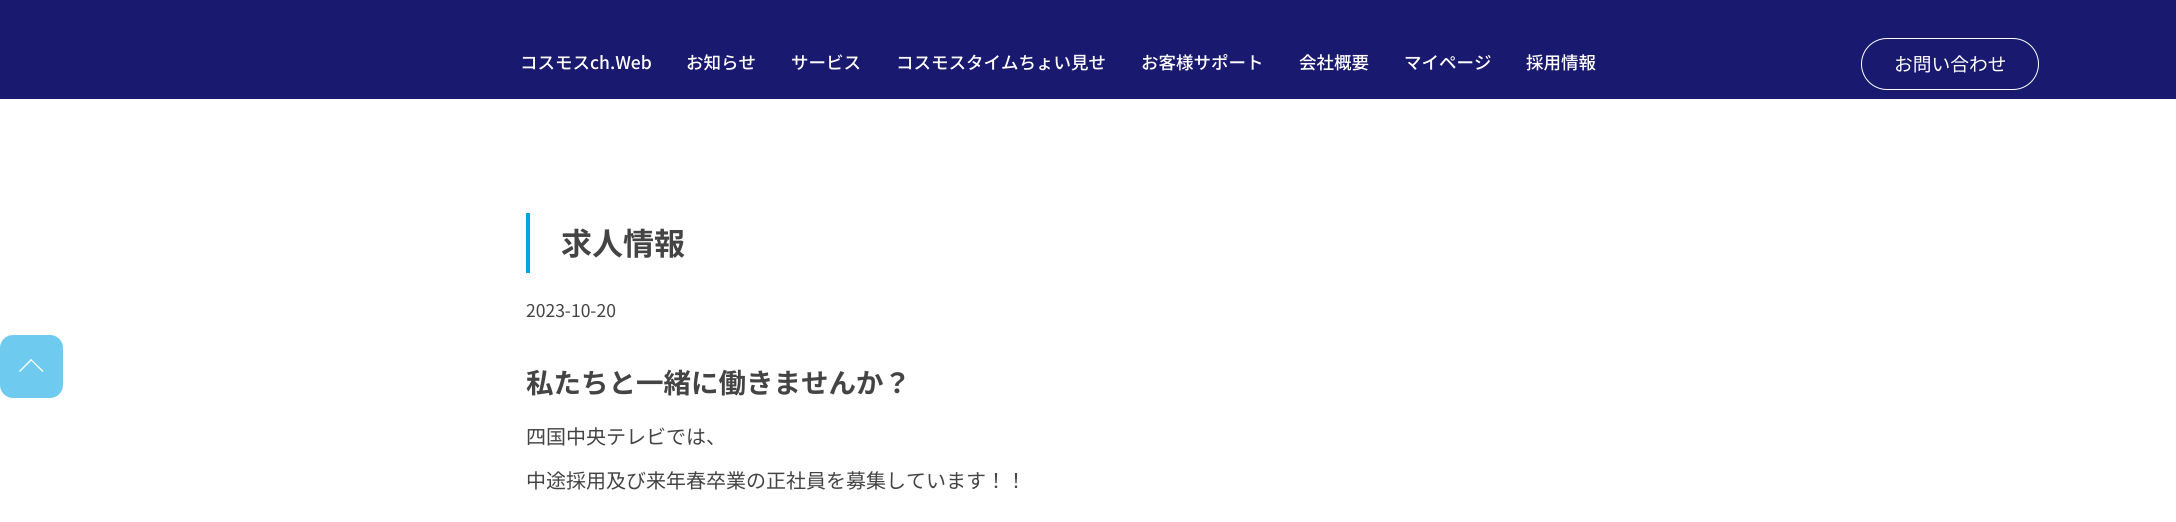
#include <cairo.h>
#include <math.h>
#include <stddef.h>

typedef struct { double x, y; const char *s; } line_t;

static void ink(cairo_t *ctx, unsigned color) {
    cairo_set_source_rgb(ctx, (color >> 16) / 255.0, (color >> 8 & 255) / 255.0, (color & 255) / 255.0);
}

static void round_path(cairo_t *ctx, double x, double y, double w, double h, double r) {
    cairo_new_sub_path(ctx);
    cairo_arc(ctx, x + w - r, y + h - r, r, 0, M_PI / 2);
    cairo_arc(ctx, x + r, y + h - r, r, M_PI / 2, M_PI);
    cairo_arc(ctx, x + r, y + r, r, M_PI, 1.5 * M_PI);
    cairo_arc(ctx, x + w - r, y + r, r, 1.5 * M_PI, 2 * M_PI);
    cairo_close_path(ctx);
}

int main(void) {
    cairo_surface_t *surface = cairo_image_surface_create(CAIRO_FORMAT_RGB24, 2176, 522);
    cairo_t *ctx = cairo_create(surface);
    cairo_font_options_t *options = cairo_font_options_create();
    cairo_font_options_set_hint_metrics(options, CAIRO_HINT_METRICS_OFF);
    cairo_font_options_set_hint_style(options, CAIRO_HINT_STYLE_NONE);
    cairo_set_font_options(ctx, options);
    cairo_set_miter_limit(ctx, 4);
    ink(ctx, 0xFFFFFF);
    cairo_paint(ctx);
    ink(ctx, 0x191970);
    cairo_rectangle(ctx, 0, 0, 2176, 99);
    cairo_fill(ctx);
    cairo_select_font_face(ctx, "Noto Sans JP Medium", CAIRO_FONT_SLANT_NORMAL, CAIRO_FONT_WEIGHT_NORMAL);
    cairo_set_font_size(ctx, 17.5);
    ink(ctx, 0xFFFFFF);
    {
        static const line_t items[] = {
            {520, 69, "コスモスch.Web"},
            {686, 69, "お知らせ"},
            {791, 69, "サービス"},
            {896, 69, "コスモスタイムちょい見せ"},
            {1141, 69, "お客様サポート"},
            {1299, 69, "会社概要"},
            {1404, 69, "マイページ"},
            {1526, 69, "採用情報"},
        };
        for (size_t i = 0; i < sizeof items / sizeof *items; i++) {
            cairo_move_to(ctx, items[i].x, items[i].y);
            cairo_show_text(ctx, items[i].s);
        }
    }
    round_path(ctx, 1861.5, 38.5, 177, 51, 25.5);
    cairo_set_line_width(ctx, 1);
    cairo_stroke(ctx);
    cairo_select_font_face(ctx, "Noto Sans JP", CAIRO_FONT_SLANT_NORMAL, CAIRO_FONT_WEIGHT_NORMAL);
    cairo_set_font_size(ctx, 18.75);
    cairo_move_to(ctx, 1894, 71);
    cairo_show_text(ctx, "お問い合わせ");
    ink(ctx, 0x6ECAEF);
    round_path(ctx, 0, 335, 63, 63, 13);
    cairo_fill(ctx);
    ink(ctx, 0xFFFFFF);
    cairo_new_path(ctx);
    cairo_move_to(ctx, 31, 359);
    cairo_line_to(ctx, 43.5, 371);
    cairo_line_to(ctx, 42.5, 372);
    cairo_line_to(ctx, 30.5, 360);
    cairo_close_path(ctx);
    cairo_fill(ctx);
    cairo_new_path(ctx);
    cairo_move_to(ctx, 31, 359);
    cairo_line_to(ctx, 32, 360);
    cairo_line_to(ctx, 20, 372);
    cairo_line_to(ctx, 19, 371);
    cairo_close_path(ctx);
    cairo_fill(ctx);
    ink(ctx, 0x02A4E8);
    cairo_rectangle(ctx, 526, 213, 4, 60);
    cairo_fill(ctx);
    cairo_select_font_face(ctx, "Noto Sans JP", CAIRO_FONT_SLANT_NORMAL, CAIRO_FONT_WEIGHT_BOLD);
    cairo_set_font_size(ctx, 31);
    ink(ctx, 0x444444);
    cairo_move_to(ctx, 561, 255);
    cairo_show_text(ctx, "求人情報");
    cairo_select_font_face(ctx, "Noto Sans JP", CAIRO_FONT_SLANT_NORMAL, CAIRO_FONT_WEIGHT_NORMAL);
    cairo_set_font_size(ctx, 17.5);
    cairo_move_to(ctx, 526, 317);
    cairo_show_text(ctx, "2023-10-20");
    cairo_select_font_face(ctx, "Noto Sans JP", CAIRO_FONT_SLANT_NORMAL, CAIRO_FONT_WEIGHT_BOLD);
    cairo_set_font_size(ctx, 27.5);
    cairo_move_to(ctx, 526, 393);
    cairo_show_text(ctx, "私たちと一緒に働きませんか？");
    cairo_select_font_face(ctx, "Noto Sans JP", CAIRO_FONT_SLANT_NORMAL, CAIRO_FONT_WEIGHT_NORMAL);
    cairo_set_font_size(ctx, 20);
    cairo_move_to(ctx, 526, 444);
    cairo_show_text(ctx, "四国中央テレビでは、");
    cairo_move_to(ctx, 526, 488);
    cairo_show_text(ctx, "中途採用及び来年春卒業の正社員を募集しています！！");
    cairo_surface_write_to_png(surface, "image.png");
    cairo_font_options_destroy(options);
    cairo_destroy(ctx);
    cairo_surface_destroy(surface);
    return 0;
}
